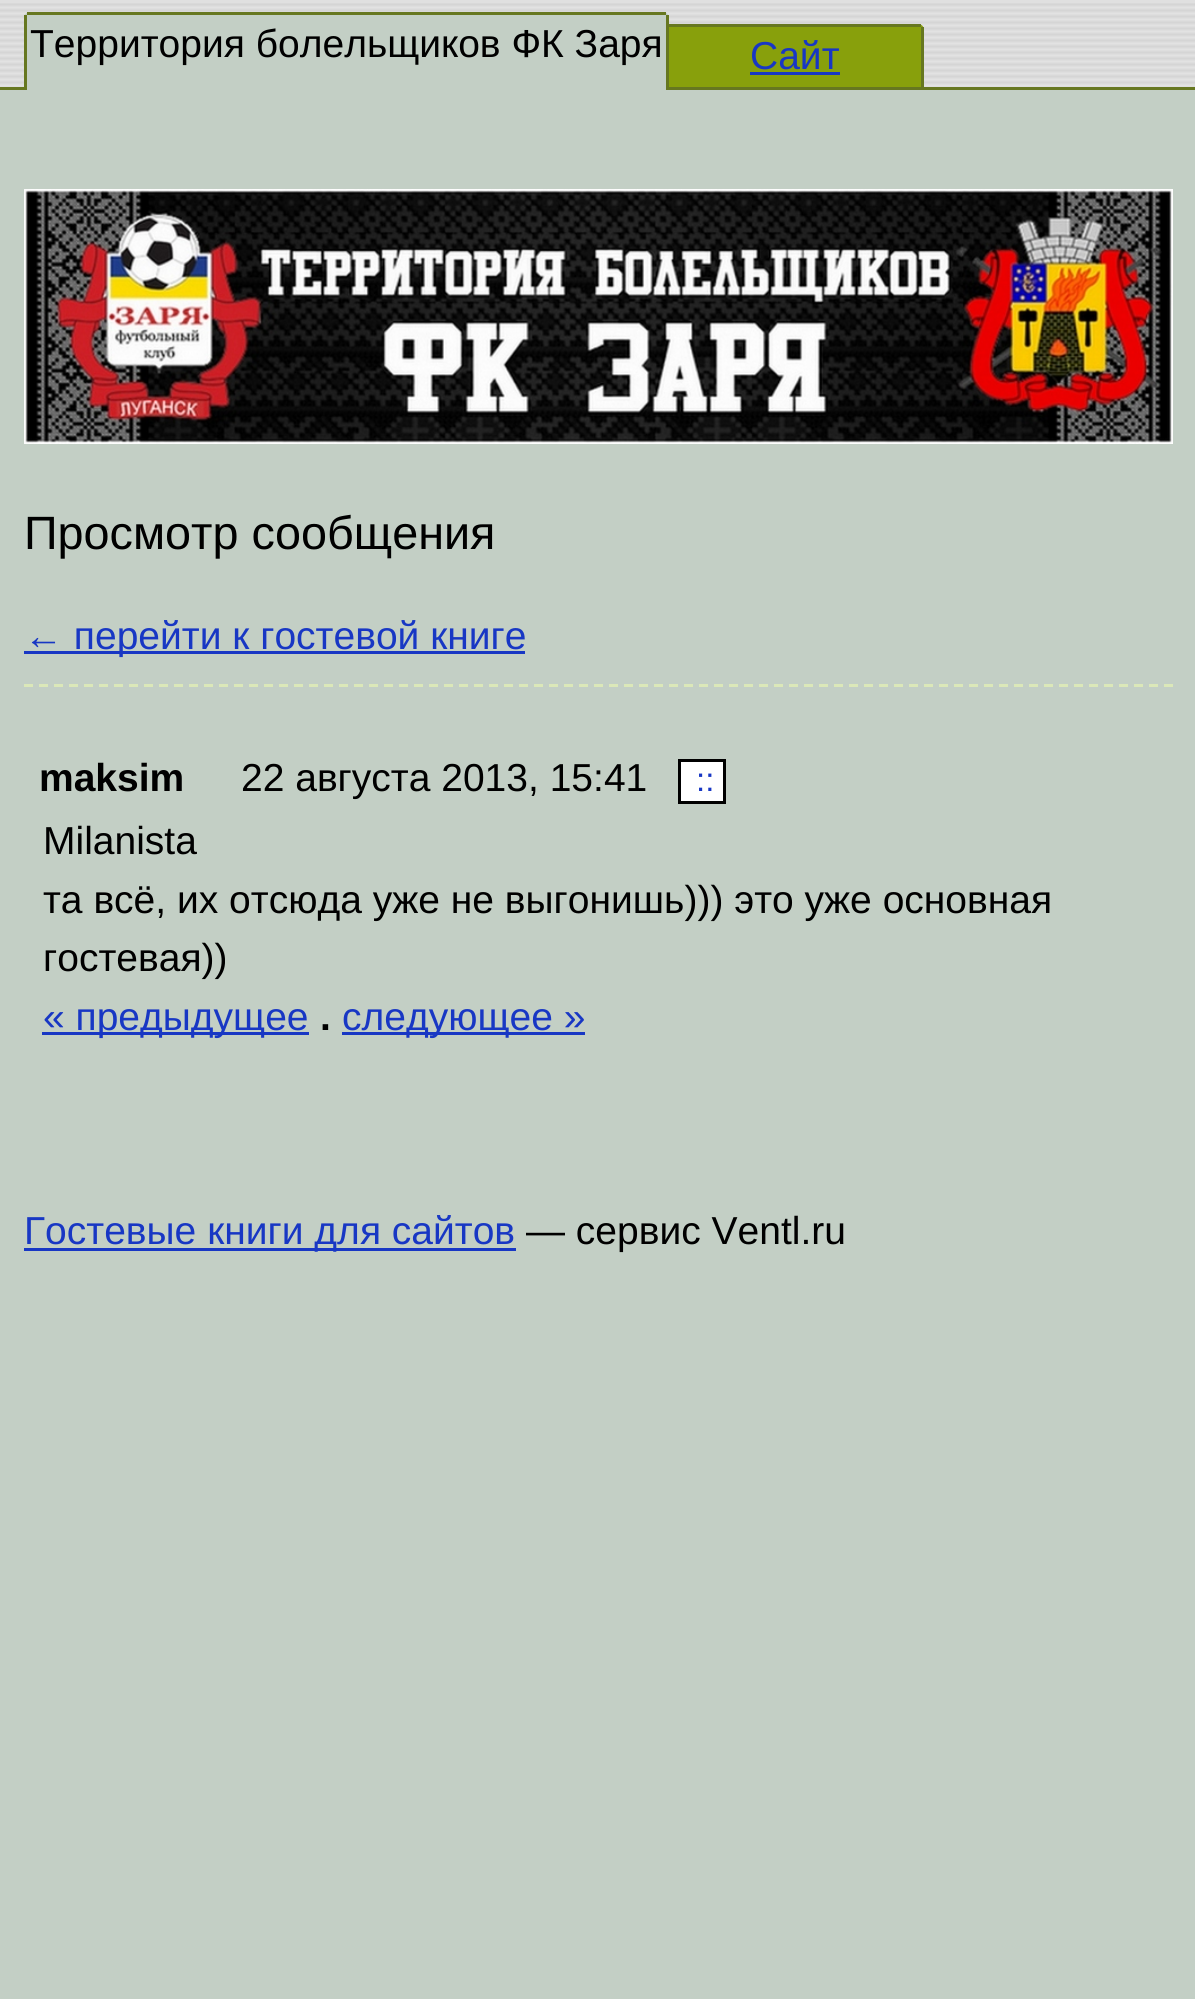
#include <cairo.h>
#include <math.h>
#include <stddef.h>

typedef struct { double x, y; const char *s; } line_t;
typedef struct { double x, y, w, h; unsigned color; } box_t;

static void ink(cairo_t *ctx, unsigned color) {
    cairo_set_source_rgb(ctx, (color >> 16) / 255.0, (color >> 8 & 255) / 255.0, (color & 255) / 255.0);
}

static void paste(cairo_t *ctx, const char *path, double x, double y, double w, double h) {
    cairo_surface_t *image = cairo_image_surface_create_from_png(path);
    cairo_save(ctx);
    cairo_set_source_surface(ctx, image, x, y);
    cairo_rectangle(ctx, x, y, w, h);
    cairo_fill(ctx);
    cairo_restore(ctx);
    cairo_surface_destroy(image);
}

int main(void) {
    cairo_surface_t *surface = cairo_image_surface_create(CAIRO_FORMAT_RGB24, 1195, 1999);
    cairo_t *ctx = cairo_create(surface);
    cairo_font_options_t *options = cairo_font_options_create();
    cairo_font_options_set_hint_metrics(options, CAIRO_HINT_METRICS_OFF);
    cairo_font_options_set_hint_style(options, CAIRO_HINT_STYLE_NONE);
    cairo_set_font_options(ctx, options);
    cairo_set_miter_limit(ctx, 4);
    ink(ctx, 0xC3CFC5);
    cairo_paint(ctx);
    ink(ctx, 0xE0E0E0);
    cairo_rectangle(ctx, 0, 0, 1195, 87);
    cairo_fill(ctx);
    paste(ctx, "media/1.png", 0, 3, 1195, 84);
    ink(ctx, 0x667720);
    cairo_rectangle(ctx, 0, 87, 1195, 3);
    cairo_fill(ctx);
    ink(ctx, 0xC3CFC5);
    cairo_new_path(ctx);
    cairo_move_to(ctx, 30, 12);
    cairo_line_to(ctx, 663, 12);
    cairo_curve_to(ctx, 666.5, 12, 669, 14.5, 669, 18);
    cairo_line_to(ctx, 669, 90);
    cairo_line_to(ctx, 24, 90);
    cairo_line_to(ctx, 24, 18);
    cairo_curve_to(ctx, 24, 14.5, 26.5, 12, 30, 12);
    cairo_close_path(ctx);
    cairo_fill(ctx);
    {
        static const box_t items[] = {
            {27, 12, 639, 3, 0x667720},
            {666, 15, 3, 75, 0x667720},
            {24, 15, 3, 75, 0x667720},
        };
        for (size_t i = 0; i < sizeof items / sizeof *items; i++) {
            ink(ctx, items[i].color);
            cairo_rectangle(ctx, items[i].x, items[i].y, items[i].w, items[i].h);
            cairo_fill(ctx);
        }
    }
    cairo_select_font_face(ctx, "Liberation Sans", CAIRO_FONT_SLANT_NORMAL, CAIRO_FONT_WEIGHT_NORMAL);
    cairo_set_font_size(ctx, 39);
    ink(ctx, 0x000000);
    cairo_move_to(ctx, 30, 57);
    cairo_show_text(ctx, "Территория болельщиков ФК Заря");
    ink(ctx, 0x88A00C);
    cairo_new_path(ctx);
    cairo_move_to(ctx, 669, 24);
    cairo_line_to(ctx, 918, 24);
    cairo_curve_to(ctx, 921.5, 24, 924, 26.5, 924, 30);
    cairo_line_to(ctx, 924, 90);
    cairo_line_to(ctx, 669, 90);
    cairo_close_path(ctx);
    cairo_fill(ctx);
    {
        static const box_t items[] = {
            {669, 24, 252, 3, 0x667720},
            {921, 27, 3, 63, 0x667720},
            {669, 87, 255, 3, 0x667720},
        };
        for (size_t i = 0; i < sizeof items / sizeof *items; i++) {
            ink(ctx, items[i].color);
            cairo_rectangle(ctx, items[i].x, items[i].y, items[i].w, items[i].h);
            cairo_fill(ctx);
        }
    }
    ink(ctx, 0x1837C4);
    cairo_move_to(ctx, 750, 69);
    cairo_show_text(ctx, "Сайт");
    cairo_rectangle(ctx, 750, 72, 90, 3);
    cairo_fill(ctx);
    paste(ctx, "media/2.png", 24, 189, 1149, 255);
    cairo_set_font_size(ctx, 46.75);
    ink(ctx, 0x000000);
    cairo_move_to(ctx, 24, 549);
    cairo_show_text(ctx, "Просмотр сообщения");
    ink(ctx, 0x1837C4);
    cairo_rectangle(ctx, 24, 651, 501, 3);
    cairo_fill(ctx);
    cairo_set_font_size(ctx, 39);
    cairo_move_to(ctx, 24, 649);
    cairo_show_text(ctx, "← перейти к гостевой книге");
    cairo_new_path(ctx);
    cairo_move_to(ctx, 24, 685.5);
    cairo_line_to(ctx, 1173, 685.5);
    ink(ctx, 0xDBE8B9);
    cairo_set_line_width(ctx, 3);
    cairo_set_dash(ctx, (double[]){9, 6}, 2, 0);
    cairo_stroke(ctx);
    cairo_select_font_face(ctx, "Liberation Sans", CAIRO_FONT_SLANT_NORMAL, CAIRO_FONT_WEIGHT_BOLD);
    ink(ctx, 0x000000);
    cairo_move_to(ctx, 39, 791);
    cairo_show_text(ctx, "maksim");
    cairo_select_font_face(ctx, "Liberation Sans", CAIRO_FONT_SLANT_NORMAL, CAIRO_FONT_WEIGHT_NORMAL);
    cairo_move_to(ctx, 241, 791);
    cairo_show_text(ctx, "22 августа 2013, 15:41");
    ink(ctx, 0xFFFFFF);
    cairo_rectangle(ctx, 679.5, 760.5, 45, 42);
    cairo_fill_preserve(ctx);
    ink(ctx, 0x000000);
    cairo_set_dash(ctx, NULL, 0, 0);
    cairo_stroke(ctx);
    cairo_set_font_size(ctx, 33);
    ink(ctx, 0x1837C4);
    cairo_move_to(ctx, 696, 791);
    cairo_show_text(ctx, "::");
    cairo_set_font_size(ctx, 39);
    ink(ctx, 0x000000);
    {
        static const line_t items[] = {
            {43, 854, "Milanista"},
            {43, 913, "та всё, их отсюда уже не выгонишь))) это уже основная"},
            {43, 971, "гостевая))"},
        };
        for (size_t i = 0; i < sizeof items / sizeof *items; i++) {
            cairo_move_to(ctx, items[i].x, items[i].y);
            cairo_show_text(ctx, items[i].s);
        }
    }
    ink(ctx, 0x1837C4);
    cairo_rectangle(ctx, 42, 1032, 267, 3);
    cairo_fill(ctx);
    cairo_move_to(ctx, 43, 1030);
    cairo_show_text(ctx, "« предыдущее");
    cairo_select_font_face(ctx, "Liberation Sans", CAIRO_FONT_SLANT_NORMAL, CAIRO_FONT_WEIGHT_BOLD);
    ink(ctx, 0x000000);
    cairo_move_to(ctx, 320, 1030);
    cairo_show_text(ctx, ".");
    ink(ctx, 0x1837C4);
    cairo_rectangle(ctx, 342, 1032, 243, 3);
    cairo_fill(ctx);
    cairo_select_font_face(ctx, "Liberation Sans", CAIRO_FONT_SLANT_NORMAL, CAIRO_FONT_WEIGHT_NORMAL);
    cairo_move_to(ctx, 342, 1030);
    cairo_show_text(ctx, "следующее »");
    cairo_rectangle(ctx, 24, 1248, 492, 3);
    cairo_fill(ctx);
    cairo_move_to(ctx, 24, 1244);
    cairo_show_text(ctx, "Гостевые книги для сайтов");
    ink(ctx, 0x000000);
    cairo_move_to(ctx, 526, 1244);
    cairo_show_text(ctx, "— сервис Ventl.ru");
    cairo_surface_write_to_png(surface, "image.png");
    cairo_font_options_destroy(options);
    cairo_destroy(ctx);
    cairo_surface_destroy(surface);
    return 0;
}
